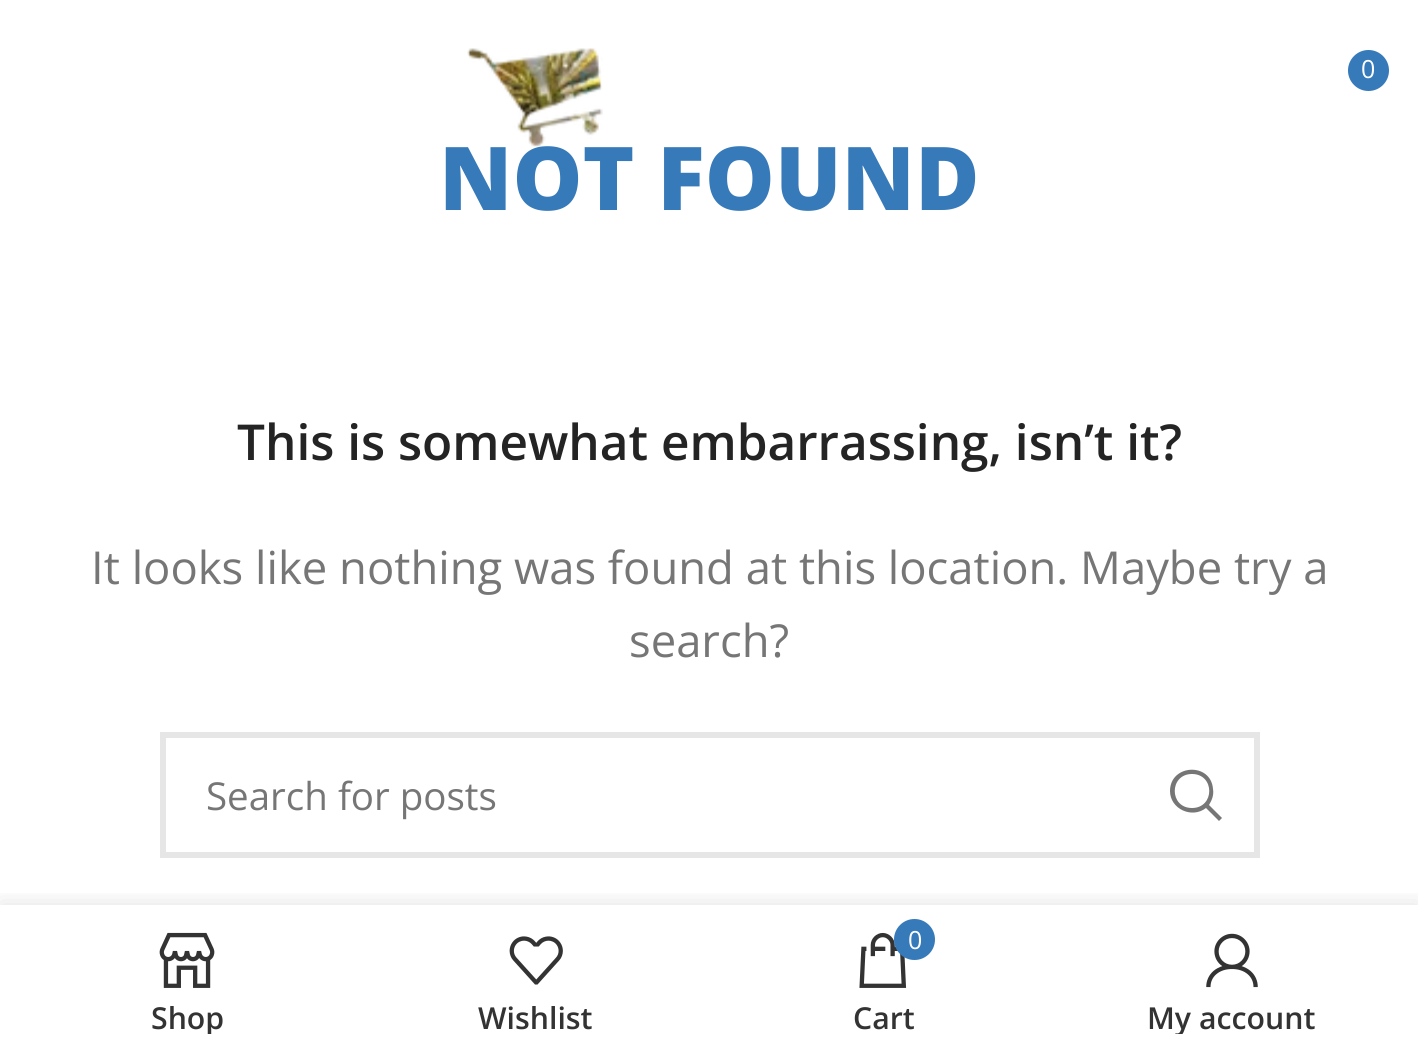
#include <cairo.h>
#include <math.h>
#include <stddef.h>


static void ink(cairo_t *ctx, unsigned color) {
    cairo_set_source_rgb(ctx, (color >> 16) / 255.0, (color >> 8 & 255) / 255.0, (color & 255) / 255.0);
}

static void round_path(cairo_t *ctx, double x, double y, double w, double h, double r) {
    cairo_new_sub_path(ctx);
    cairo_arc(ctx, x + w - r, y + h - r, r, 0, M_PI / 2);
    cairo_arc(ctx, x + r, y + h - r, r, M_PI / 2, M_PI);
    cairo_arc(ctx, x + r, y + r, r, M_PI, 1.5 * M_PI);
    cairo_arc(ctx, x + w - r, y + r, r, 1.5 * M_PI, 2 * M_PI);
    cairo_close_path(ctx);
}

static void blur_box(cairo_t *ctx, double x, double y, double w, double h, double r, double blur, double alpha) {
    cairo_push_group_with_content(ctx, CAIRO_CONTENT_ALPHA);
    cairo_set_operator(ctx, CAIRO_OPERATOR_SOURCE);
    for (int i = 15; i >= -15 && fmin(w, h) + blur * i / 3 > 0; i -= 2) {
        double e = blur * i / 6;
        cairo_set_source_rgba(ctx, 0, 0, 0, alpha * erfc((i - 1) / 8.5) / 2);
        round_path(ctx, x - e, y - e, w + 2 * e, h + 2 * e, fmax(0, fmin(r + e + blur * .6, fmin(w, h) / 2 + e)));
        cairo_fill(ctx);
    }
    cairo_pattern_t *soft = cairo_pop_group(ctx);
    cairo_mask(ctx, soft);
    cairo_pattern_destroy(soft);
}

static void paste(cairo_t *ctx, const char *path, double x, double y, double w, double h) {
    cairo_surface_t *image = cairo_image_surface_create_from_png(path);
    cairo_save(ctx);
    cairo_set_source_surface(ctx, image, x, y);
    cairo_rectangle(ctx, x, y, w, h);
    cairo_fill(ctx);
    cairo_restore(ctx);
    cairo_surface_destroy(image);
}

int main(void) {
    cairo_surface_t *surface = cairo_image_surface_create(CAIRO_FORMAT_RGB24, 1418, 1054);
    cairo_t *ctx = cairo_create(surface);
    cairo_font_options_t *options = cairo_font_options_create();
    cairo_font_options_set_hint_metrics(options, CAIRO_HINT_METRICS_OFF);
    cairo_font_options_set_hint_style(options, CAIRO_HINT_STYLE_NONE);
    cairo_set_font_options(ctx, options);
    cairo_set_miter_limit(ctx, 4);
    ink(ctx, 0xFFFFFF);
    cairo_paint(ctx);
    cairo_select_font_face(ctx, "Open Sans ExtraBold", CAIRO_FONT_SLANT_NORMAL, CAIRO_FONT_WEIGHT_NORMAL);
    cairo_set_font_size(ctx, 88);
    ink(ctx, 0x367ABA);
    cairo_move_to(ctx, 439, 210);
    cairo_show_text(ctx, "NOT FOUND");
    paste(ctx, "media/1.png", 467, 48, 136, 99);
    cairo_arc(ctx, 1368.5, 70.5, 20.5, 0, 2 * M_PI);
    cairo_fill(ctx);
    cairo_select_font_face(ctx, "Open Sans", CAIRO_FONT_SLANT_NORMAL, CAIRO_FONT_WEIGHT_NORMAL);
    cairo_set_font_size(ctx, 25);
    ink(ctx, 0xFFFFFF);
    cairo_move_to(ctx, 1361, 78);
    cairo_show_text(ctx, "0");
    cairo_select_font_face(ctx, "Open Sans SemiBold", CAIRO_FONT_SLANT_NORMAL, CAIRO_FONT_WEIGHT_NORMAL);
    cairo_set_font_size(ctx, 49.5);
    ink(ctx, 0x242424);
    cairo_move_to(ctx, 237, 460);
    cairo_show_text(ctx, "This is somewhat embarrassing, isn’t it?");
    cairo_select_font_face(ctx, "Open Sans", CAIRO_FONT_SLANT_NORMAL, CAIRO_FONT_WEIGHT_NORMAL);
    cairo_set_font_size(ctx, 45.4);
    ink(ctx, 0x767676);
    cairo_move_to(ctx, 91, 584);
    cairo_show_text(ctx, "It looks like nothing was found at this location. Maybe try a");
    cairo_move_to(ctx, 629, 657);
    cairo_show_text(ctx, "search?");
    cairo_rectangle(ctx, 163, 735, 1094, 120);
    ink(ctx, 0xE6E6E6);
    cairo_set_line_width(ctx, 6);
    cairo_stroke(ctx);
    cairo_set_font_size(ctx, 38.5);
    ink(ctx, 0x767676);
    cairo_move_to(ctx, 206, 810);
    cairo_show_text(ctx, "Search for posts");
    cairo_new_path(ctx);
    cairo_move_to(ctx, 1170, 791);
    cairo_curve_to(ctx, 1170, 809, 1192, 819, 1206, 808);
    cairo_line_to(ctx, 1219, 821);
    cairo_line_to(ctx, 1222, 818);
    cairo_line_to(ctx, 1209, 805);
    cairo_curve_to(ctx, 1212, 800, 1214, 795, 1213, 789);
    cairo_curve_to(ctx, 1211, 762, 1170, 764, 1170, 791);
    cairo_close_path(ctx);
    cairo_move_to(ctx, 1192, 808);
    cairo_curve_to(ctx, 1169, 808, 1169, 774, 1192, 774);
    cairo_curve_to(ctx, 1215, 774, 1215, 808, 1192, 808);
    cairo_close_path(ctx);
    cairo_fill(ctx);
    cairo_save(ctx);
    cairo_rectangle(ctx, 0, 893, 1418, 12);
    cairo_clip(ctx);
    ink(ctx, 0x000000);
    blur_box(ctx, 0, 905, 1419, 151, 0, 12.5, 0.12);
    cairo_restore(ctx);
    paste(ctx, "media/2.png", 159, 932, 56, 56);
    cairo_save(ctx);
    cairo_rectangle(ctx, 41, 998, 295, 36);
    cairo_clip(ctx);
    cairo_select_font_face(ctx, "Open Sans SemiBold", CAIRO_FONT_SLANT_NORMAL, CAIRO_FONT_WEIGHT_NORMAL);
    cairo_set_font_size(ctx, 30.25);
    ink(ctx, 0x333333);
    cairo_move_to(ctx, 151, 1029);
    cairo_show_text(ctx, "Shop");
    cairo_restore(ctx);
    paste(ctx, "media/3.png", 509, 936, 54, 49);
    cairo_select_font_face(ctx, "Open Sans SemiBold", CAIRO_FONT_SLANT_NORMAL, CAIRO_FONT_WEIGHT_NORMAL);
    cairo_set_font_size(ctx, 30.25);
    ink(ctx, 0x333333);
    cairo_move_to(ctx, 478, 1029);
    cairo_show_text(ctx, "Wishlist");
    paste(ctx, "media/4.png", 859, 932, 48, 56);
    ink(ctx, 0x367ABA);
    cairo_arc(ctx, 914.5, 939.5, 20.5, 0, 2 * M_PI);
    cairo_fill(ctx);
    cairo_select_font_face(ctx, "Open Sans", CAIRO_FONT_SLANT_NORMAL, CAIRO_FONT_WEIGHT_NORMAL);
    cairo_set_font_size(ctx, 25);
    ink(ctx, 0xFFFFFF);
    cairo_move_to(ctx, 908, 949);
    cairo_show_text(ctx, "0");
    cairo_select_font_face(ctx, "Open Sans SemiBold", CAIRO_FONT_SLANT_NORMAL, CAIRO_FONT_WEIGHT_NORMAL);
    cairo_set_font_size(ctx, 30.25);
    ink(ctx, 0x333333);
    cairo_move_to(ctx, 853, 1029);
    cairo_show_text(ctx, "Cart");
    paste(ctx, "media/5.png", 1206, 933, 52, 55);
    cairo_save(ctx);
    cairo_rectangle(ctx, 1086, 998, 292, 36);
    cairo_clip(ctx);
    cairo_move_to(ctx, 1147, 1029);
    cairo_show_text(ctx, "My account");
    cairo_restore(ctx);
    cairo_surface_write_to_png(surface, "image.png");
    cairo_font_options_destroy(options);
    cairo_destroy(ctx);
    cairo_surface_destroy(surface);
    return 0;
}
